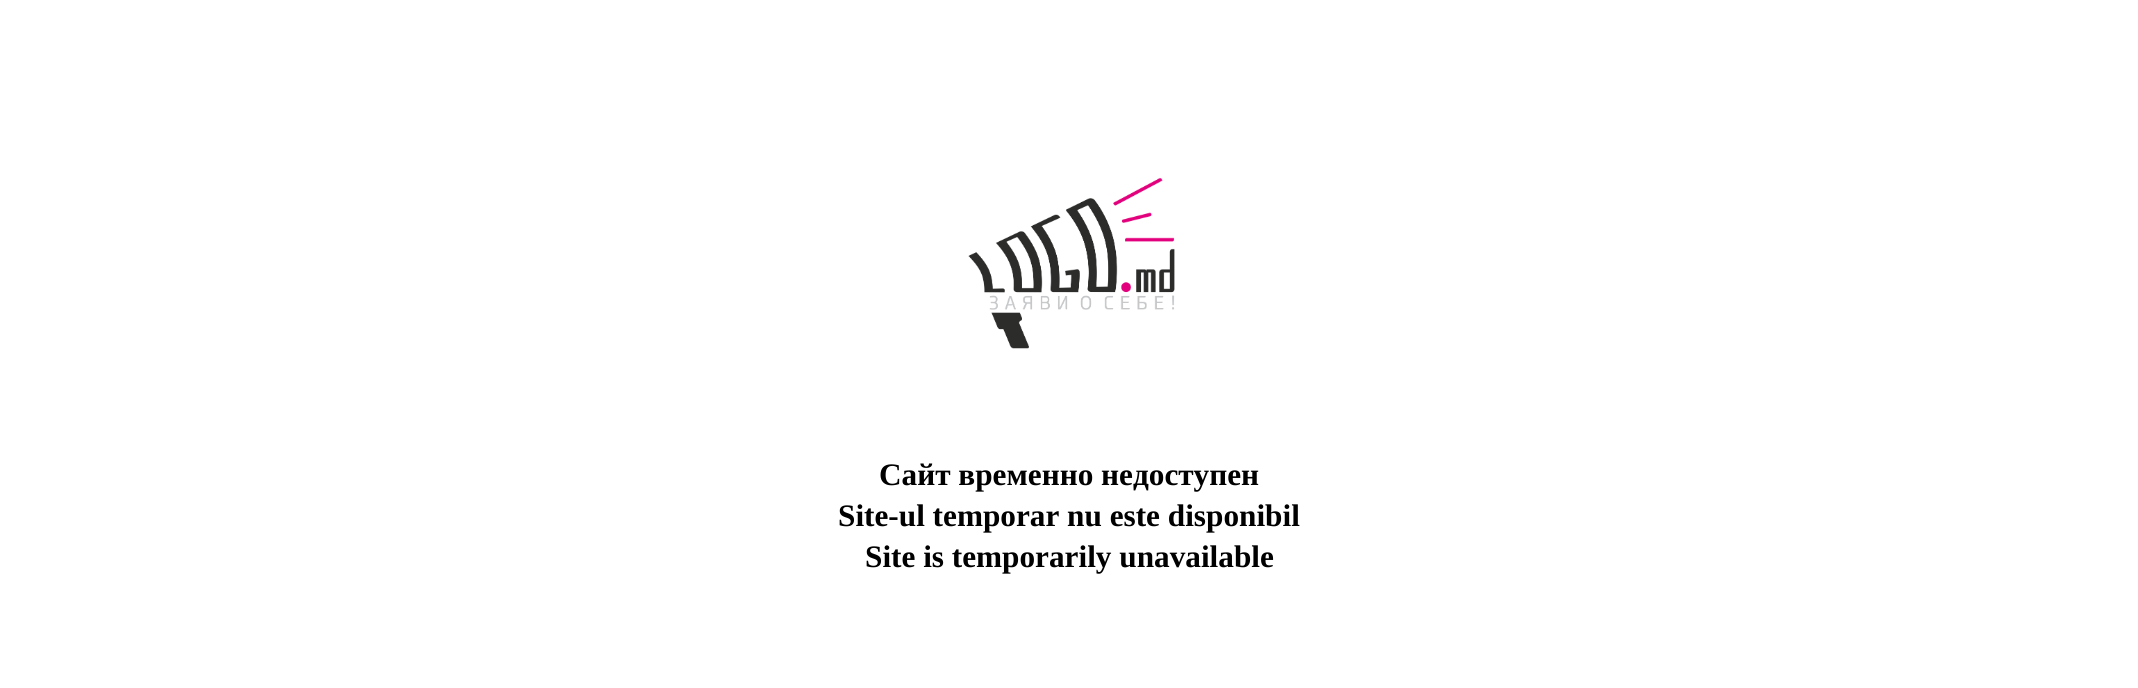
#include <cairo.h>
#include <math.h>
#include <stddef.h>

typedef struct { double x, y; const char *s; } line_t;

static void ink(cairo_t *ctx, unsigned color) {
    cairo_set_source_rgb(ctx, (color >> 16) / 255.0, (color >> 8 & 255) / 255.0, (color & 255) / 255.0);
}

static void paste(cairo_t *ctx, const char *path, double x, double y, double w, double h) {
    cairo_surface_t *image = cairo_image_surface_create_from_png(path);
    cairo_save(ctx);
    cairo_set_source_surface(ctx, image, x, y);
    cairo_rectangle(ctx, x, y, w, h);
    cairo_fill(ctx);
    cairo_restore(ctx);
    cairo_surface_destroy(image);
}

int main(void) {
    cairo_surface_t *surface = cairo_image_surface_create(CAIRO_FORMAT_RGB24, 2138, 688);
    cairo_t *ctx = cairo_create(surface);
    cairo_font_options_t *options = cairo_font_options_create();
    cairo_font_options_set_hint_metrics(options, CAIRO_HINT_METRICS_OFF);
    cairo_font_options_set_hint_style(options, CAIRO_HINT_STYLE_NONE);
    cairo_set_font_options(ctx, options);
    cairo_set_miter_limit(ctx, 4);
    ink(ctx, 0xFFFFFF);
    cairo_paint(ctx);
    paste(ctx, "media/1.png", 968, 177, 207, 172);
    cairo_select_font_face(ctx, "Liberation Serif", CAIRO_FONT_SLANT_NORMAL, CAIRO_FONT_WEIGHT_BOLD);
    cairo_set_font_size(ctx, 31.25);
    ink(ctx, 0x000000);
    {
        static const line_t items[] = {
            {879, 485, "Сайт временно недоступен"},
            {838, 526, "Site-ul temporar nu este disponibil"},
            {865, 567, "Site is temporarily unavailable"},
        };
        for (size_t i = 0; i < sizeof items / sizeof *items; i++) {
            cairo_move_to(ctx, items[i].x, items[i].y);
            cairo_show_text(ctx, items[i].s);
        }
    }
    cairo_surface_write_to_png(surface, "image.png");
    cairo_font_options_destroy(options);
    cairo_destroy(ctx);
    cairo_surface_destroy(surface);
    return 0;
}
